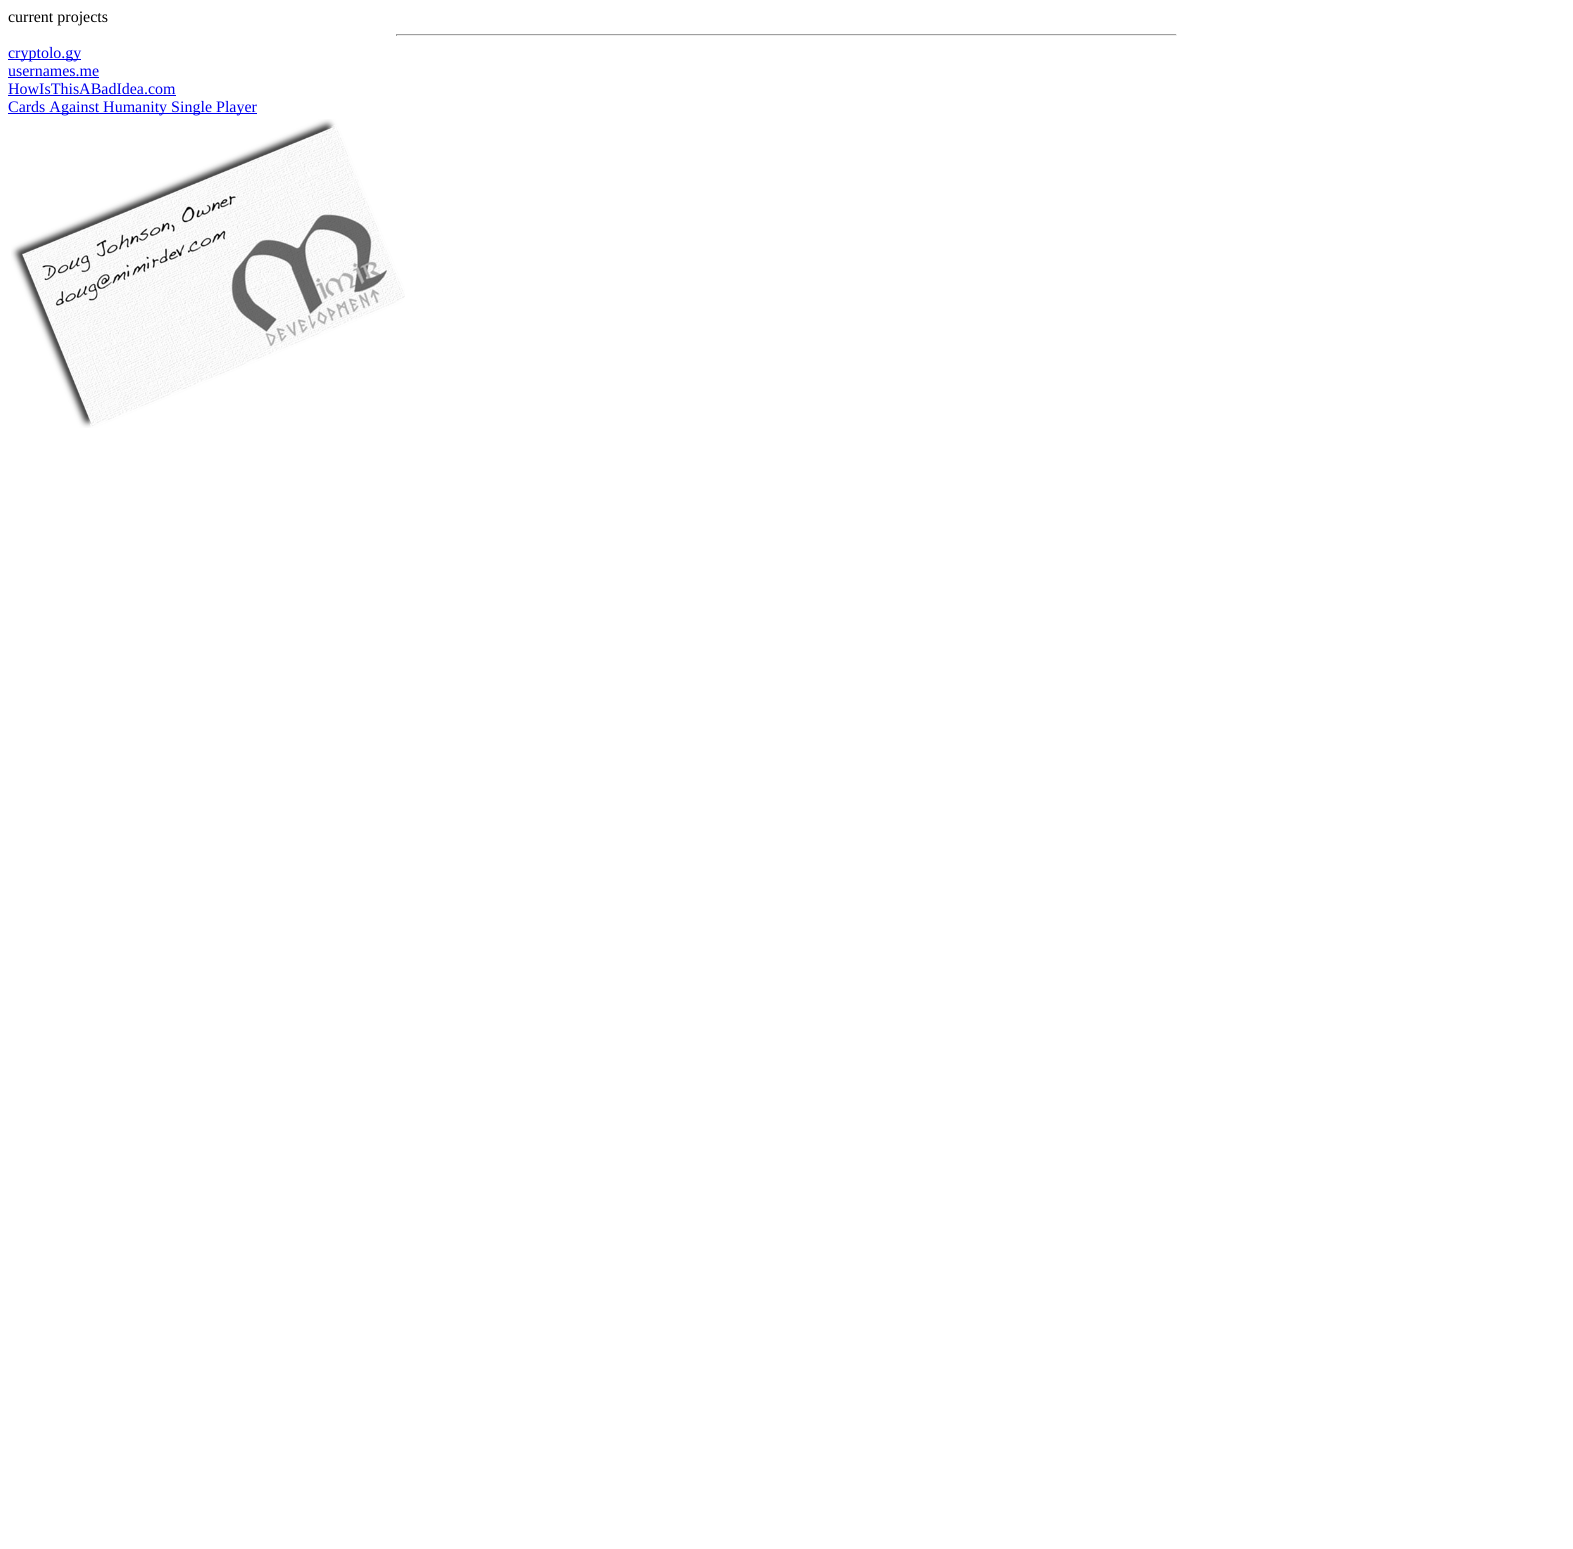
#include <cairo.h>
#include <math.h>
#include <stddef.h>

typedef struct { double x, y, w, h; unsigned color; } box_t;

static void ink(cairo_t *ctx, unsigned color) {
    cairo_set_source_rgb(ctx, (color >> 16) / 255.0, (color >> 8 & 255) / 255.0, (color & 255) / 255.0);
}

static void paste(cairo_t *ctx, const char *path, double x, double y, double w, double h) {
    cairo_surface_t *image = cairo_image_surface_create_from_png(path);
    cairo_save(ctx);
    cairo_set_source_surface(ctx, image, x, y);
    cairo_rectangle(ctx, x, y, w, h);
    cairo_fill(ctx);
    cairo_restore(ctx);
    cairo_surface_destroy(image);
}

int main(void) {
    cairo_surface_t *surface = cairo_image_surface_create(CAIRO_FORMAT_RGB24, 1573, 1549);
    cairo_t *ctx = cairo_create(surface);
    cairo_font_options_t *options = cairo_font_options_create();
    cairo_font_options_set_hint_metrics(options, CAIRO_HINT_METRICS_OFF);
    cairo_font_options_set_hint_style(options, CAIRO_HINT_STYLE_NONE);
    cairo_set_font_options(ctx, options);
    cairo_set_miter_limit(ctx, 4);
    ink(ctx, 0xFFFFFF);
    cairo_paint(ctx);
    cairo_select_font_face(ctx, "Liberation Serif", CAIRO_FONT_SLANT_NORMAL, CAIRO_FONT_WEIGHT_NORMAL);
    cairo_set_font_size(ctx, 16);
    ink(ctx, 0x000000);
    cairo_move_to(ctx, 8, 22);
    cairo_show_text(ctx, "current projects");
    {
        static const box_t items[] = {
            {396, 34, 781, 1, 0x9F9F9F},
            {1176, 34, 1, 2, 0xEEEEEE},
            {396, 35, 781, 1, 0xEEEEEE},
            {396, 34, 1, 2, 0x9F9F9F},
            {8, 59, 73, 1, 0x0000EE},
        };
        for (size_t i = 0; i < sizeof items / sizeof *items; i++) {
            ink(ctx, items[i].color);
            cairo_rectangle(ctx, items[i].x, items[i].y, items[i].w, items[i].h);
            cairo_fill(ctx);
        }
    }
    cairo_move_to(ctx, 8, 58);
    cairo_show_text(ctx, "cryptolo.gy");
    cairo_move_to(ctx, 8, 76);
    cairo_show_text(ctx, "usernames.me");
    cairo_rectangle(ctx, 8, 77, 91, 1);
    cairo_fill(ctx);
    cairo_move_to(ctx, 8, 94);
    cairo_show_text(ctx, "HowIsThisABadIdea.com");
    cairo_rectangle(ctx, 8, 95, 168, 1);
    cairo_fill(ctx);
    cairo_rectangle(ctx, 8, 113, 249, 1);
    cairo_fill(ctx);
    cairo_move_to(ctx, 8, 112);
    cairo_show_text(ctx, "Cards Against Humanity Single Player");
    paste(ctx, "media/1.png", 11, 119, 394, 309);
    cairo_surface_write_to_png(surface, "image.png");
    cairo_font_options_destroy(options);
    cairo_destroy(ctx);
    cairo_surface_destroy(surface);
    return 0;
}
